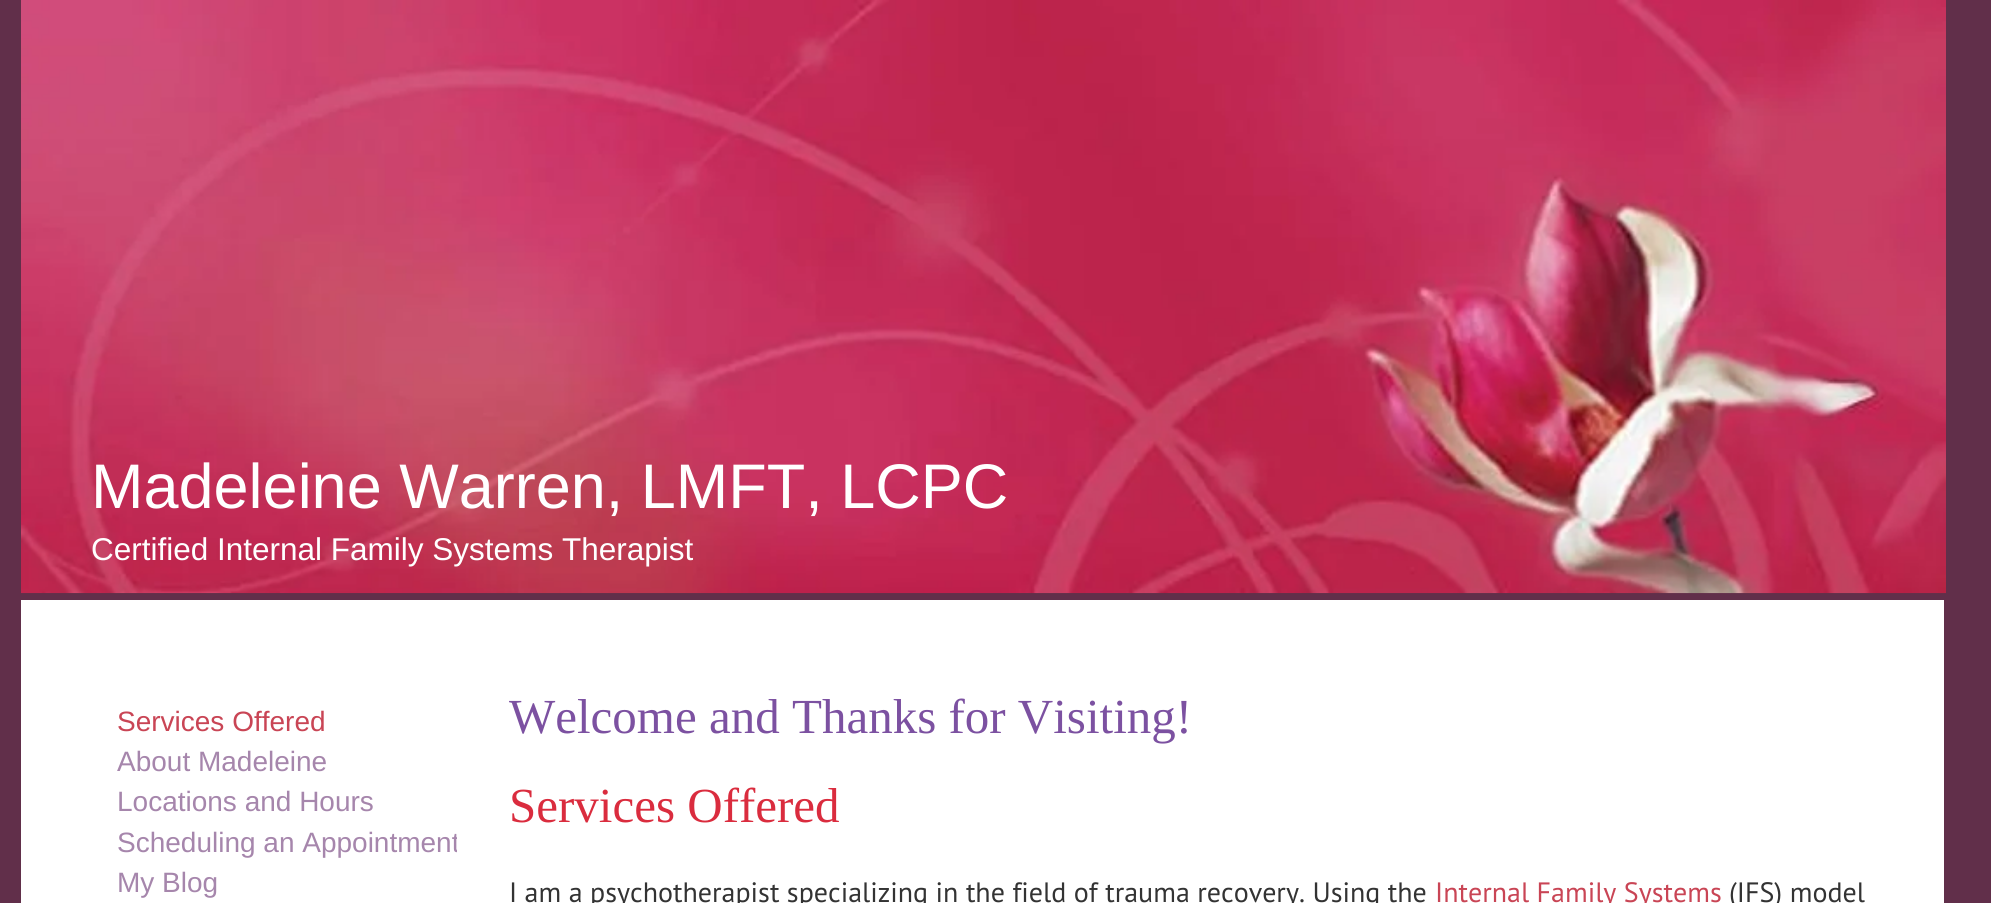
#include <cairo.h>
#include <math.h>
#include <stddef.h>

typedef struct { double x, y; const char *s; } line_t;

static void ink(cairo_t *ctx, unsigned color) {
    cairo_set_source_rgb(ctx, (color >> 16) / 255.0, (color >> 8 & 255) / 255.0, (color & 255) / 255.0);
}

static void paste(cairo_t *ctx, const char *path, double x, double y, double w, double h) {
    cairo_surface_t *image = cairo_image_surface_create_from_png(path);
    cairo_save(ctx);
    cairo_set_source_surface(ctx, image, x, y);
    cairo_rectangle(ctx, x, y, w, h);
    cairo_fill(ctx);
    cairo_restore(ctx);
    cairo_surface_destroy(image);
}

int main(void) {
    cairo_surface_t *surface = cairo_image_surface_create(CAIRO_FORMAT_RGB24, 1991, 903);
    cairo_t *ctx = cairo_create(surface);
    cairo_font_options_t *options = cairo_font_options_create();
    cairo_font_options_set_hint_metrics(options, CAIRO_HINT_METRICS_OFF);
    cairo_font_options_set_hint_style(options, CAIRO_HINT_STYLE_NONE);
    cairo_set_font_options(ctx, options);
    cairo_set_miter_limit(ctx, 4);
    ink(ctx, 0x612F4A);
    cairo_paint(ctx);
    paste(ctx, "media/1.png", 21, 0, 1925, 594);
    cairo_select_font_face(ctx, "Liberation Sans", CAIRO_FONT_SLANT_NORMAL, CAIRO_FONT_WEIGHT_NORMAL);
    cairo_set_font_size(ctx, 63);
    ink(ctx, 0xFFFFFF);
    cairo_move_to(ctx, 91, 508);
    cairo_show_text(ctx, "Madeleine Warren, LMFT, LCPC");
    cairo_set_font_size(ctx, 31.5);
    cairo_move_to(ctx, 91, 560);
    cairo_show_text(ctx, "Certified Internal Family Systems Therapist");
    cairo_rectangle(ctx, 21, 600, 436, 303);
    cairo_fill(ctx);
    cairo_set_font_size(ctx, 28);
    ink(ctx, 0xC94555);
    cairo_move_to(ctx, 117, 731);
    cairo_show_text(ctx, "Services Offered");
    ink(ctx, 0xA686AC);
    {
        static const line_t items[] = {
            {117, 771, "About Madeleine"},
            {117, 811, "Locations and Hours"},
            {117, 852, "Scheduling an Appointment"},
            {117, 892, "My Blog"},
        };
        for (size_t i = 0; i < sizeof items / sizeof *items; i++) {
            cairo_move_to(ctx, items[i].x, items[i].y);
            cairo_show_text(ctx, items[i].s);
        }
    }
    ink(ctx, 0xFFFFFF);
    cairo_rectangle(ctx, 457, 600, 1487, 303);
    cairo_fill(ctx);
    cairo_select_font_face(ctx, "Liberation Serif", CAIRO_FONT_SLANT_NORMAL, CAIRO_FONT_WEIGHT_NORMAL);
    cairo_set_font_size(ctx, 49);
    ink(ctx, 0x7C51A1);
    cairo_move_to(ctx, 509, 733);
    cairo_show_text(ctx, "Welcome and Thanks for Visiting!");
    ink(ctx, 0xDA2C3E);
    cairo_move_to(ctx, 509, 822);
    cairo_show_text(ctx, "Services Offered");
    cairo_select_font_face(ctx, "PT Sans", CAIRO_FONT_SLANT_NORMAL, CAIRO_FONT_WEIGHT_NORMAL);
    cairo_set_font_size(ctx, 28);
    ink(ctx, 0x333333);
    cairo_move_to(ctx, 509, 902);
    cairo_show_text(ctx, "I am a psychotherapist specializing in the field of trauma recovery. Using the");
    ink(ctx, 0xC94555);
    cairo_move_to(ctx, 1435, 902);
    cairo_show_text(ctx, "Internal Family Systems");
    ink(ctx, 0x333333);
    cairo_move_to(ctx, 1729, 902);
    cairo_show_text(ctx, "(IFS) model");
    cairo_surface_write_to_png(surface, "image.png");
    cairo_font_options_destroy(options);
    cairo_destroy(ctx);
    cairo_surface_destroy(surface);
    return 0;
}
